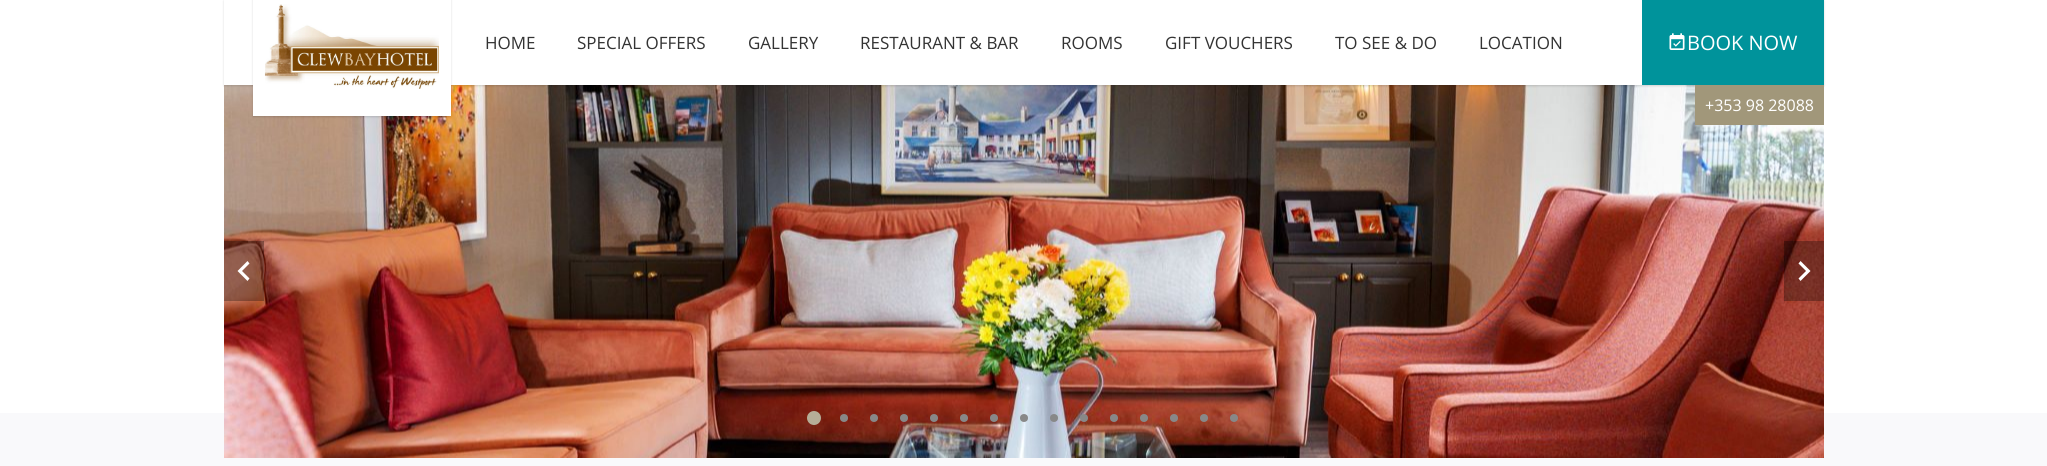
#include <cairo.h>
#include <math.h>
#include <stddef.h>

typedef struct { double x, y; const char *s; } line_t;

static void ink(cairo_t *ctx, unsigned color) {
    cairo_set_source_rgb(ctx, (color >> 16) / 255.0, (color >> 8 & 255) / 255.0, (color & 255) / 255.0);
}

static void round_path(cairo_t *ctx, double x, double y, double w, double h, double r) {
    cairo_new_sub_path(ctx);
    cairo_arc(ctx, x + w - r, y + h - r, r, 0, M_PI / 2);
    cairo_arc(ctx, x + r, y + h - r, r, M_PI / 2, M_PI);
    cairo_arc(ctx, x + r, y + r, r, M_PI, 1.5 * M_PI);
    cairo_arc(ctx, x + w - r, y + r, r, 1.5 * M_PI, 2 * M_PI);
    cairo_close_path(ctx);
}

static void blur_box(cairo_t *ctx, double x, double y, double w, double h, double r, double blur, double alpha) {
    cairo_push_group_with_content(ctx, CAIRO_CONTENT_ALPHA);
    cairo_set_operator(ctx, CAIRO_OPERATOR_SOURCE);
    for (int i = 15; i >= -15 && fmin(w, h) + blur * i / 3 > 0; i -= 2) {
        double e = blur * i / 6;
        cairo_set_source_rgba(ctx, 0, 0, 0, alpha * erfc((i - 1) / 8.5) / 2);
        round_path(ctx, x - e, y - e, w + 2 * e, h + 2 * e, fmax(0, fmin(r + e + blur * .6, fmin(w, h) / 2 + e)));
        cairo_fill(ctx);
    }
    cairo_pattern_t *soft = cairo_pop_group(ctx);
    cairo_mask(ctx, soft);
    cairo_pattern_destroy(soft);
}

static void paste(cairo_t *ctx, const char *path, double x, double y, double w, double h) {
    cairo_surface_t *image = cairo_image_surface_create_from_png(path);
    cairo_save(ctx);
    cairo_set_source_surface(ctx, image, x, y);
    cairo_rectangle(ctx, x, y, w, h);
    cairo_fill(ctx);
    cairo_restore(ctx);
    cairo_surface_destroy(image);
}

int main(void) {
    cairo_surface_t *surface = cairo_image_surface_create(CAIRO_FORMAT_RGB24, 2047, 466);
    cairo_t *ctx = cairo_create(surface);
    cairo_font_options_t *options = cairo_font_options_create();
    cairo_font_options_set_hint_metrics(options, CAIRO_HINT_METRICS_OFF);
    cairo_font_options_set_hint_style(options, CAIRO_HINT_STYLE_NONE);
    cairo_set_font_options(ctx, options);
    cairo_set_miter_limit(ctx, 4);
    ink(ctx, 0xFFFFFF);
    cairo_paint(ctx);
    ink(ctx, 0xF9F9FB);
    cairo_rectangle(ctx, 0, 413, 2047, 53);
    cairo_fill(ctx);
    paste(ctx, "media/3.png", 224, 85, 1600, 373);
    paste(ctx, "media/4.png", 224, 85, 1600, 372);
    cairo_save(ctx);
    cairo_set_fill_rule(ctx, CAIRO_FILL_RULE_EVEN_ODD);
    cairo_new_path(ctx);
    cairo_move_to(ctx, 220, 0);
    cairo_line_to(ctx, 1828, 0);
    cairo_line_to(ctx, 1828, 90);
    cairo_line_to(ctx, 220, 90);
    cairo_close_path(ctx);
    cairo_move_to(ctx, 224, 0);
    cairo_line_to(ctx, 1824, 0);
    cairo_line_to(ctx, 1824, 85);
    cairo_line_to(ctx, 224, 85);
    cairo_close_path(ctx);
    cairo_clip(ctx);
    ink(ctx, 0x000000);
    blur_box(ctx, 224, 1, 1600, 85, 0, 1, 0.15);
    cairo_restore(ctx);
    ink(ctx, 0x000000);
    blur_box(ctx, 253, -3, 198, 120, 0, 1, 0.15);
    ink(ctx, 0xFFFFFF);
    cairo_rectangle(ctx, 253, 0, 198, 116);
    cairo_fill(ctx);
    paste(ctx, "media/1.png", 264, 4, 175, 85);
    cairo_select_font_face(ctx, "Open Sans", CAIRO_FONT_SLANT_NORMAL, CAIRO_FONT_WEIGHT_NORMAL);
    cairo_set_font_size(ctx, 17);
    ink(ctx, 0x333333);
    {
        static const line_t items[] = {
            {485, 49, "HOME"},
            {577, 49, "SPECIAL OFFERS"},
            {748, 49, "GALLERY"},
            {860, 49, "RESTAURANT & BAR"},
            {1061, 49, "ROOMS"},
            {1165, 49, "GIFT VOUCHERS"},
            {1335, 49, "TO SEE & DO"},
            {1479, 49, "LOCATION"},
        };
        for (size_t i = 0; i < sizeof items / sizeof *items; i++) {
            cairo_move_to(ctx, items[i].x, items[i].y);
            cairo_show_text(ctx, items[i].s);
        }
    }
    ink(ctx, 0x00939B);
    cairo_rectangle(ctx, 1642, 0, 182, 85);
    cairo_fill(ctx);
    paste(ctx, "media/2.png", 1669, 33, 16, 17);
    cairo_set_font_size(ctx, 20);
    ink(ctx, 0xFFFFFF);
    cairo_move_to(ctx, 1687, 50);
    cairo_show_text(ctx, "BOOK NOW");
    ink(ctx, 0xA1977A);
    cairo_rectangle(ctx, 1695, 85, 129, 40);
    cairo_fill(ctx);
    cairo_set_font_size(ctx, 16);
    ink(ctx, 0xFFFFFF);
    cairo_move_to(ctx, 1705, 111);
    cairo_show_text(ctx, "+353 98 28088");
    cairo_set_source_rgba(ctx, 0, 0, 0, 0.3);
    cairo_rectangle(ctx, 224, 241, 40, 60);
    cairo_fill(ctx);
    ink(ctx, 0xFFFFFF);
    cairo_new_path(ctx);
    cairo_move_to(ctx, 249.5, 278.5);
    cairo_line_to(ctx, 242, 271);
    cairo_line_to(ctx, 249.5, 263.5);
    cairo_line_to(ctx, 247.5, 261);
    cairo_line_to(ctx, 237.5, 271);
    cairo_line_to(ctx, 247.5, 281);
    cairo_close_path(ctx);
    cairo_fill(ctx);
    cairo_set_source_rgba(ctx, 0, 0, 0, 0.3);
    cairo_rectangle(ctx, 1784, 241, 40, 60);
    cairo_fill(ctx);
    ink(ctx, 0xFFFFFF);
    cairo_new_path(ctx);
    cairo_move_to(ctx, 1798.5, 278.5);
    cairo_line_to(ctx, 1806, 271);
    cairo_line_to(ctx, 1798.5, 263.5);
    cairo_line_to(ctx, 1800.5, 261);
    cairo_line_to(ctx, 1810.5, 271);
    cairo_line_to(ctx, 1800.5, 281);
    cairo_close_path(ctx);
    cairo_fill(ctx);
    ink(ctx, 0xB6AE98);
    cairo_arc(ctx, 814, 418, 7, 0, 2 * M_PI);
    cairo_fill(ctx);
    ink(ctx, 0x888888);
    cairo_arc(ctx, 844, 418, 4, 0, 2 * M_PI);
    cairo_fill(ctx);
    cairo_arc(ctx, 874, 418, 4, 0, 2 * M_PI);
    cairo_fill(ctx);
    cairo_arc(ctx, 904, 418, 4, 0, 2 * M_PI);
    cairo_fill(ctx);
    cairo_arc(ctx, 934, 418, 4, 0, 2 * M_PI);
    cairo_fill(ctx);
    cairo_arc(ctx, 964, 418, 4, 0, 2 * M_PI);
    cairo_fill(ctx);
    cairo_arc(ctx, 994, 418, 4, 0, 2 * M_PI);
    cairo_fill(ctx);
    cairo_arc(ctx, 1024, 418, 4, 0, 2 * M_PI);
    cairo_fill(ctx);
    cairo_arc(ctx, 1054, 418, 4, 0, 2 * M_PI);
    cairo_fill(ctx);
    cairo_arc(ctx, 1084, 418, 4, 0, 2 * M_PI);
    cairo_fill(ctx);
    cairo_arc(ctx, 1114, 418, 4, 0, 2 * M_PI);
    cairo_fill(ctx);
    cairo_arc(ctx, 1144, 418, 4, 0, 2 * M_PI);
    cairo_fill(ctx);
    cairo_arc(ctx, 1174, 418, 4, 0, 2 * M_PI);
    cairo_fill(ctx);
    cairo_arc(ctx, 1204, 418, 4, 0, 2 * M_PI);
    cairo_fill(ctx);
    cairo_arc(ctx, 1234, 418, 4, 0, 2 * M_PI);
    cairo_fill(ctx);
    cairo_surface_write_to_png(surface, "image.png");
    cairo_font_options_destroy(options);
    cairo_destroy(ctx);
    cairo_surface_destroy(surface);
    return 0;
}
